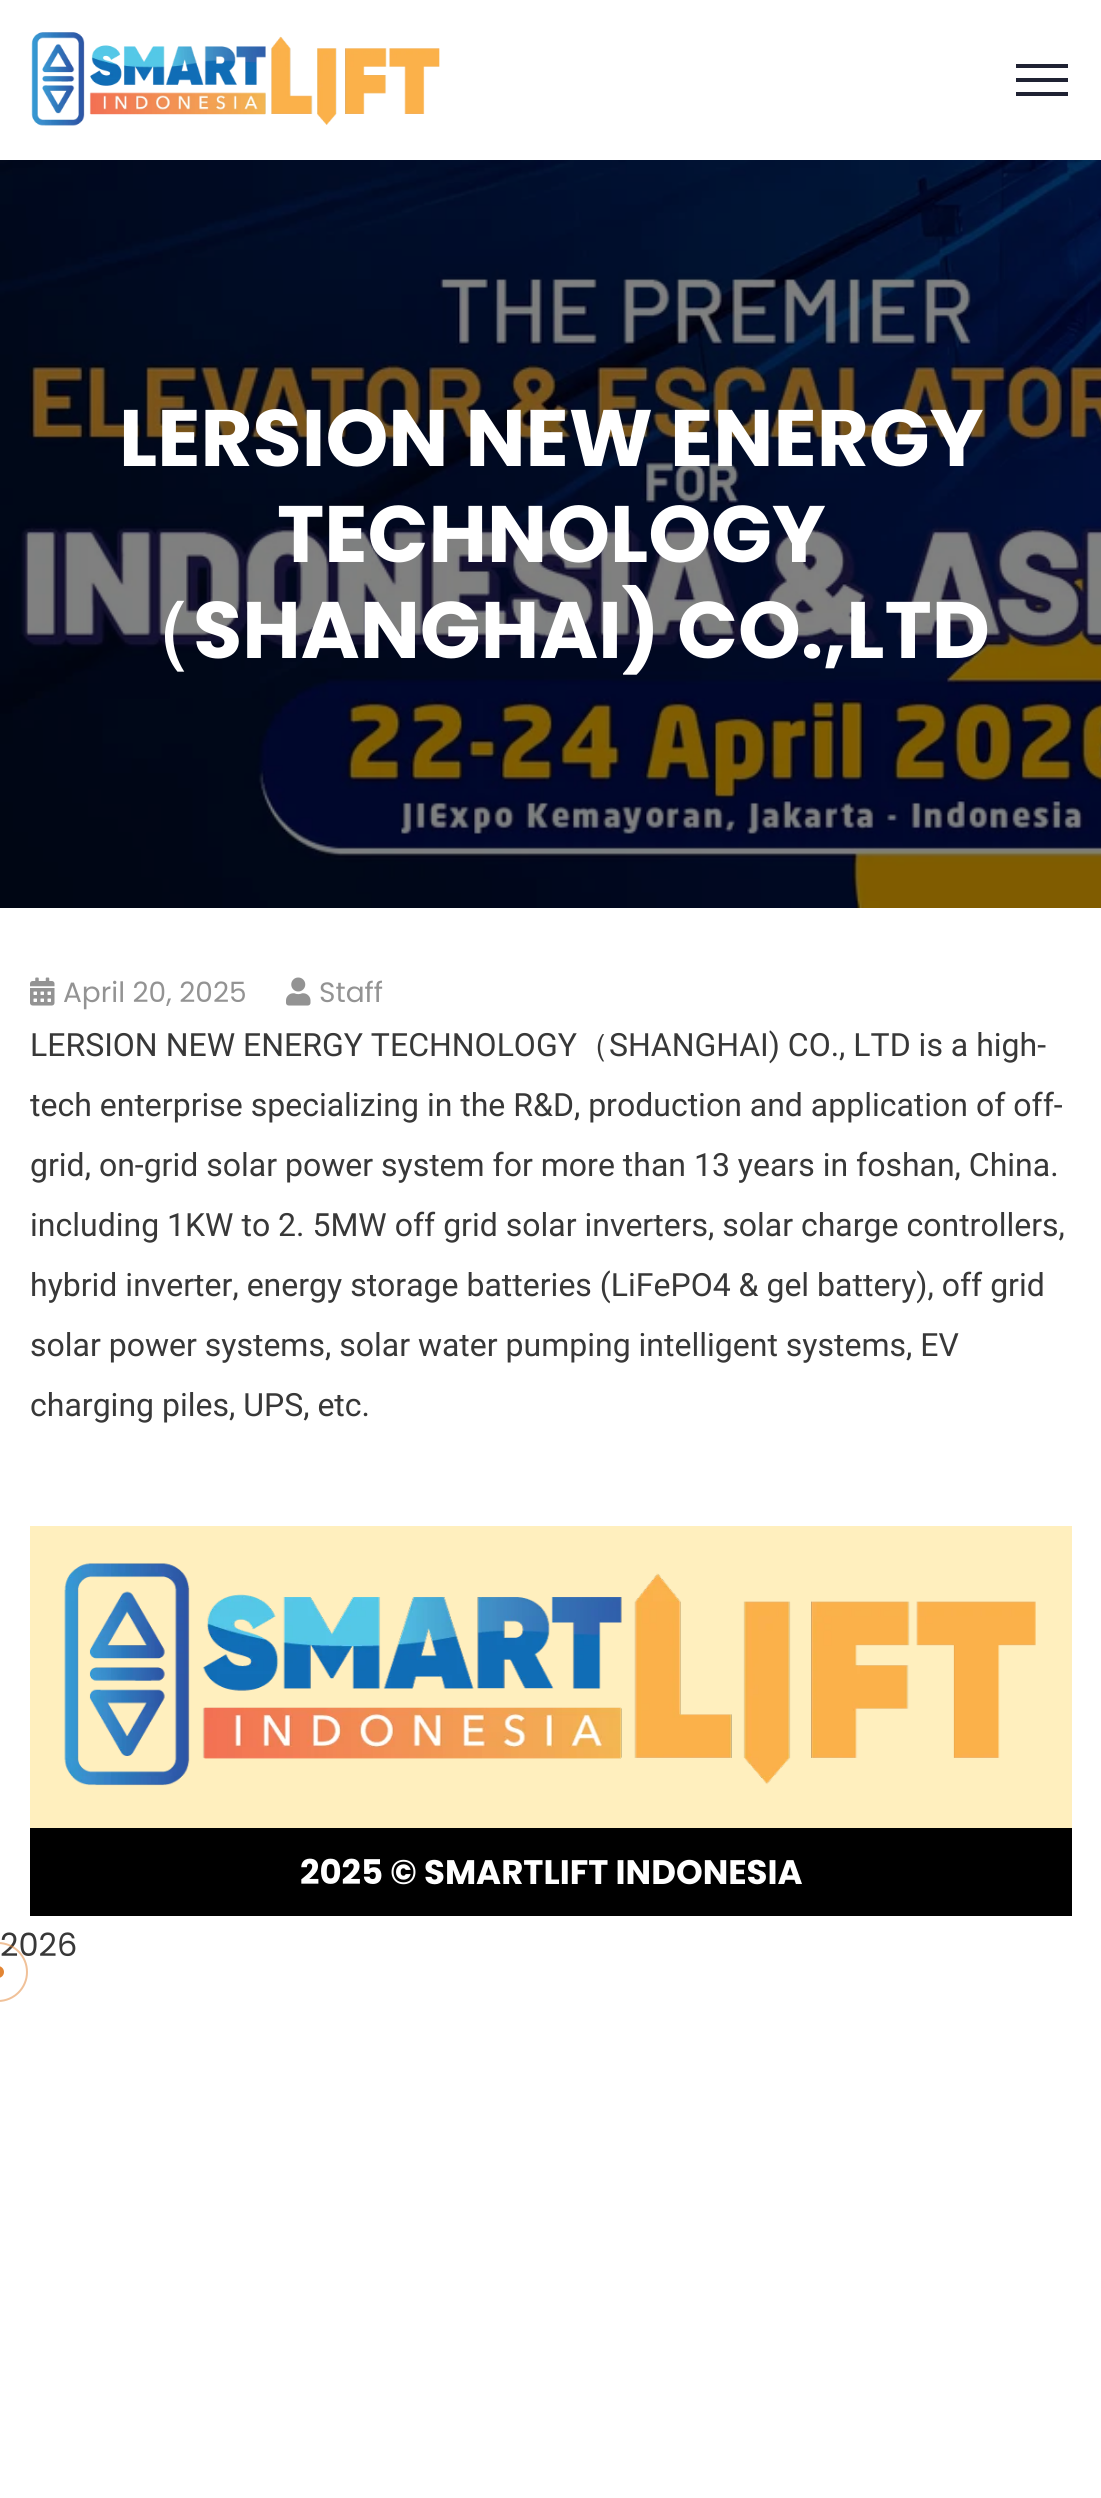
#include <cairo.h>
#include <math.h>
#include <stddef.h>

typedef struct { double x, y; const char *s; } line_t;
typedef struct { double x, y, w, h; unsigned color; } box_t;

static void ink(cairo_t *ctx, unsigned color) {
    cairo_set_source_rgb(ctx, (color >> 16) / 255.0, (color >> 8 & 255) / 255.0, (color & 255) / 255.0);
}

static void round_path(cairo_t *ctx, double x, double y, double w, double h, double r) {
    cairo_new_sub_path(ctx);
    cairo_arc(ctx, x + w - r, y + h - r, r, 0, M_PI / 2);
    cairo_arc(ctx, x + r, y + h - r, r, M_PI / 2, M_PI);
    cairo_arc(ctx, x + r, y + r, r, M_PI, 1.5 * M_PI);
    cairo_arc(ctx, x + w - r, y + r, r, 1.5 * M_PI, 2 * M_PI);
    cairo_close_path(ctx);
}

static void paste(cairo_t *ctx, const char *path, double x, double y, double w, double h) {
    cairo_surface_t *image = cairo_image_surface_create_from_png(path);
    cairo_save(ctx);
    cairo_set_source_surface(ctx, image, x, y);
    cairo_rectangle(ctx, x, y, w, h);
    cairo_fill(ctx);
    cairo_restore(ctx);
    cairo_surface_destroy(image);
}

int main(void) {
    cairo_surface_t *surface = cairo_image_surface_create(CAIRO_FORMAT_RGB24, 1101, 2498);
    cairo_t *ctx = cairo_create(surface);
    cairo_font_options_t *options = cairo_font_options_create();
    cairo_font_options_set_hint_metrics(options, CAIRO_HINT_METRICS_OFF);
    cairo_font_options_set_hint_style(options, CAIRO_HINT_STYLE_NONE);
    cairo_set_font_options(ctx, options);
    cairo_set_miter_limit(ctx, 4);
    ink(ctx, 0xFFFFFF);
    cairo_paint(ctx);
    paste(ctx, "media/1.png", 31, 32, 409, 94);
    {
        static const box_t items[] = {
            {1016, 64, 52, 4, 0x1F2233},
            {1016, 78, 52, 4, 0x1F2233},
            {1016, 92, 52, 4, 0x1F2233},
        };
        for (size_t i = 0; i < sizeof items / sizeof *items; i++) {
            ink(ctx, items[i].color);
            cairo_rectangle(ctx, items[i].x, items[i].y, items[i].w, items[i].h);
            cairo_fill(ctx);
        }
    }
    paste(ctx, "media/2.png", 0, 160, 1101, 748);
    cairo_select_font_face(ctx, "Poppins", CAIRO_FONT_SLANT_NORMAL, CAIRO_FONT_WEIGHT_BOLD);
    cairo_set_font_size(ctx, 80);
    ink(ctx, 0xFFFFFF);
    cairo_move_to(ctx, 119, 466);
    cairo_show_text(ctx, "LERSION NEW ENERGY");
    cairo_move_to(ctx, 277, 562);
    cairo_show_text(ctx, "TECHNOLOGY");
    cairo_select_font_face(ctx, "WenQuanYi Zen Hei", CAIRO_FONT_SLANT_NORMAL, CAIRO_FONT_WEIGHT_BOLD);
    cairo_move_to(ctx, 113, 658);
    cairo_show_text(ctx, "（");
    cairo_select_font_face(ctx, "Poppins", CAIRO_FONT_SLANT_NORMAL, CAIRO_FONT_WEIGHT_BOLD);
    cairo_move_to(ctx, 193, 658);
    cairo_show_text(ctx, "SHANGHAI) CO.,LTD");
    paste(ctx, "media/3.png", 30, 977, 25, 29);
    cairo_select_font_face(ctx, "Poppins", CAIRO_FONT_SLANT_NORMAL, CAIRO_FONT_WEIGHT_NORMAL);
    cairo_set_font_size(ctx, 28);
    ink(ctx, 0x939393);
    cairo_move_to(ctx, 63, 1002);
    cairo_show_text(ctx, "April 20, 2025");
    paste(ctx, "media/4.png", 286, 977, 25, 29);
    cairo_move_to(ctx, 319, 1002);
    cairo_show_text(ctx, "Staff");
    cairo_select_font_face(ctx, "Roboto", CAIRO_FONT_SLANT_NORMAL, CAIRO_FONT_WEIGHT_NORMAL);
    cairo_set_font_size(ctx, 32);
    ink(ctx, 0x383838);
    cairo_move_to(ctx, 30, 1056);
    cairo_show_text(ctx, "LERSION NEW ENERGY TECHNOLOGY");
    cairo_select_font_face(ctx, "WenQuanYi Zen Hei Medium", CAIRO_FONT_SLANT_NORMAL, CAIRO_FONT_WEIGHT_NORMAL);
    cairo_move_to(ctx, 577, 1056);
    cairo_show_text(ctx, "（");
    cairo_select_font_face(ctx, "Roboto", CAIRO_FONT_SLANT_NORMAL, CAIRO_FONT_WEIGHT_NORMAL);
    {
        static const line_t items[] = {
            {609, 1056, "SHANGHAI) CO., LTD is a high-"},
            {30, 1116, "tech enterprise specializing in the R&D, production and application of off-"},
            {30, 1176, "grid, on-grid solar power system for more than 13 years in foshan, China."},
            {30, 1236, "including 1KW to 2. 5MW off grid solar inverters, solar charge controllers,"},
            {30, 1296, "hybrid inverter, energy storage batteries (LiFePO4 & gel battery), off grid"},
            {30, 1356, "solar power systems, solar water pumping intelligent systems, EV"},
            {30, 1416, "charging piles, UPS, etc."},
        };
        for (size_t i = 0; i < sizeof items / sizeof *items; i++) {
            cairo_move_to(ctx, items[i].x, items[i].y);
            cairo_show_text(ctx, items[i].s);
        }
    }
    ink(ctx, 0xFFEFBE);
    cairo_rectangle(ctx, 30, 1526, 1042, 302);
    cairo_fill(ctx);
    paste(ctx, "media/5.png", 64, 1563, 972, 223);
    ink(ctx, 0x000000);
    cairo_rectangle(ctx, 30, 1828, 1042, 88);
    cairo_fill(ctx);
    cairo_select_font_face(ctx, "Poppins", CAIRO_FONT_SLANT_NORMAL, CAIRO_FONT_WEIGHT_BOLD);
    cairo_set_font_size(ctx, 34);
    ink(ctx, 0xFFFFFF);
    cairo_move_to(ctx, 300, 1884);
    cairo_show_text(ctx, "2025 © SMARTLIFT INDONESIA");
    cairo_select_font_face(ctx, "Poppins", CAIRO_FONT_SLANT_NORMAL, CAIRO_FONT_WEIGHT_NORMAL);
    cairo_set_font_size(ctx, 32);
    ink(ctx, 0x383838);
    cairo_move_to(ctx, 0, 1956);
    cairo_show_text(ctx, "2026");
    cairo_new_path(ctx);
    cairo_arc(ctx, -2, 1972, 29, 0, 2 * M_PI);
    cairo_set_source_rgba(ctx, 0.886, 0.522, 0.204, 0.5);
    cairo_stroke(ctx);
    ink(ctx, 0xE28534);
    round_path(ctx, -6, 1966, 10, 12, 6);
    cairo_fill(ctx);
    cairo_surface_write_to_png(surface, "image.png");
    cairo_font_options_destroy(options);
    cairo_destroy(ctx);
    cairo_surface_destroy(surface);
    return 0;
}
